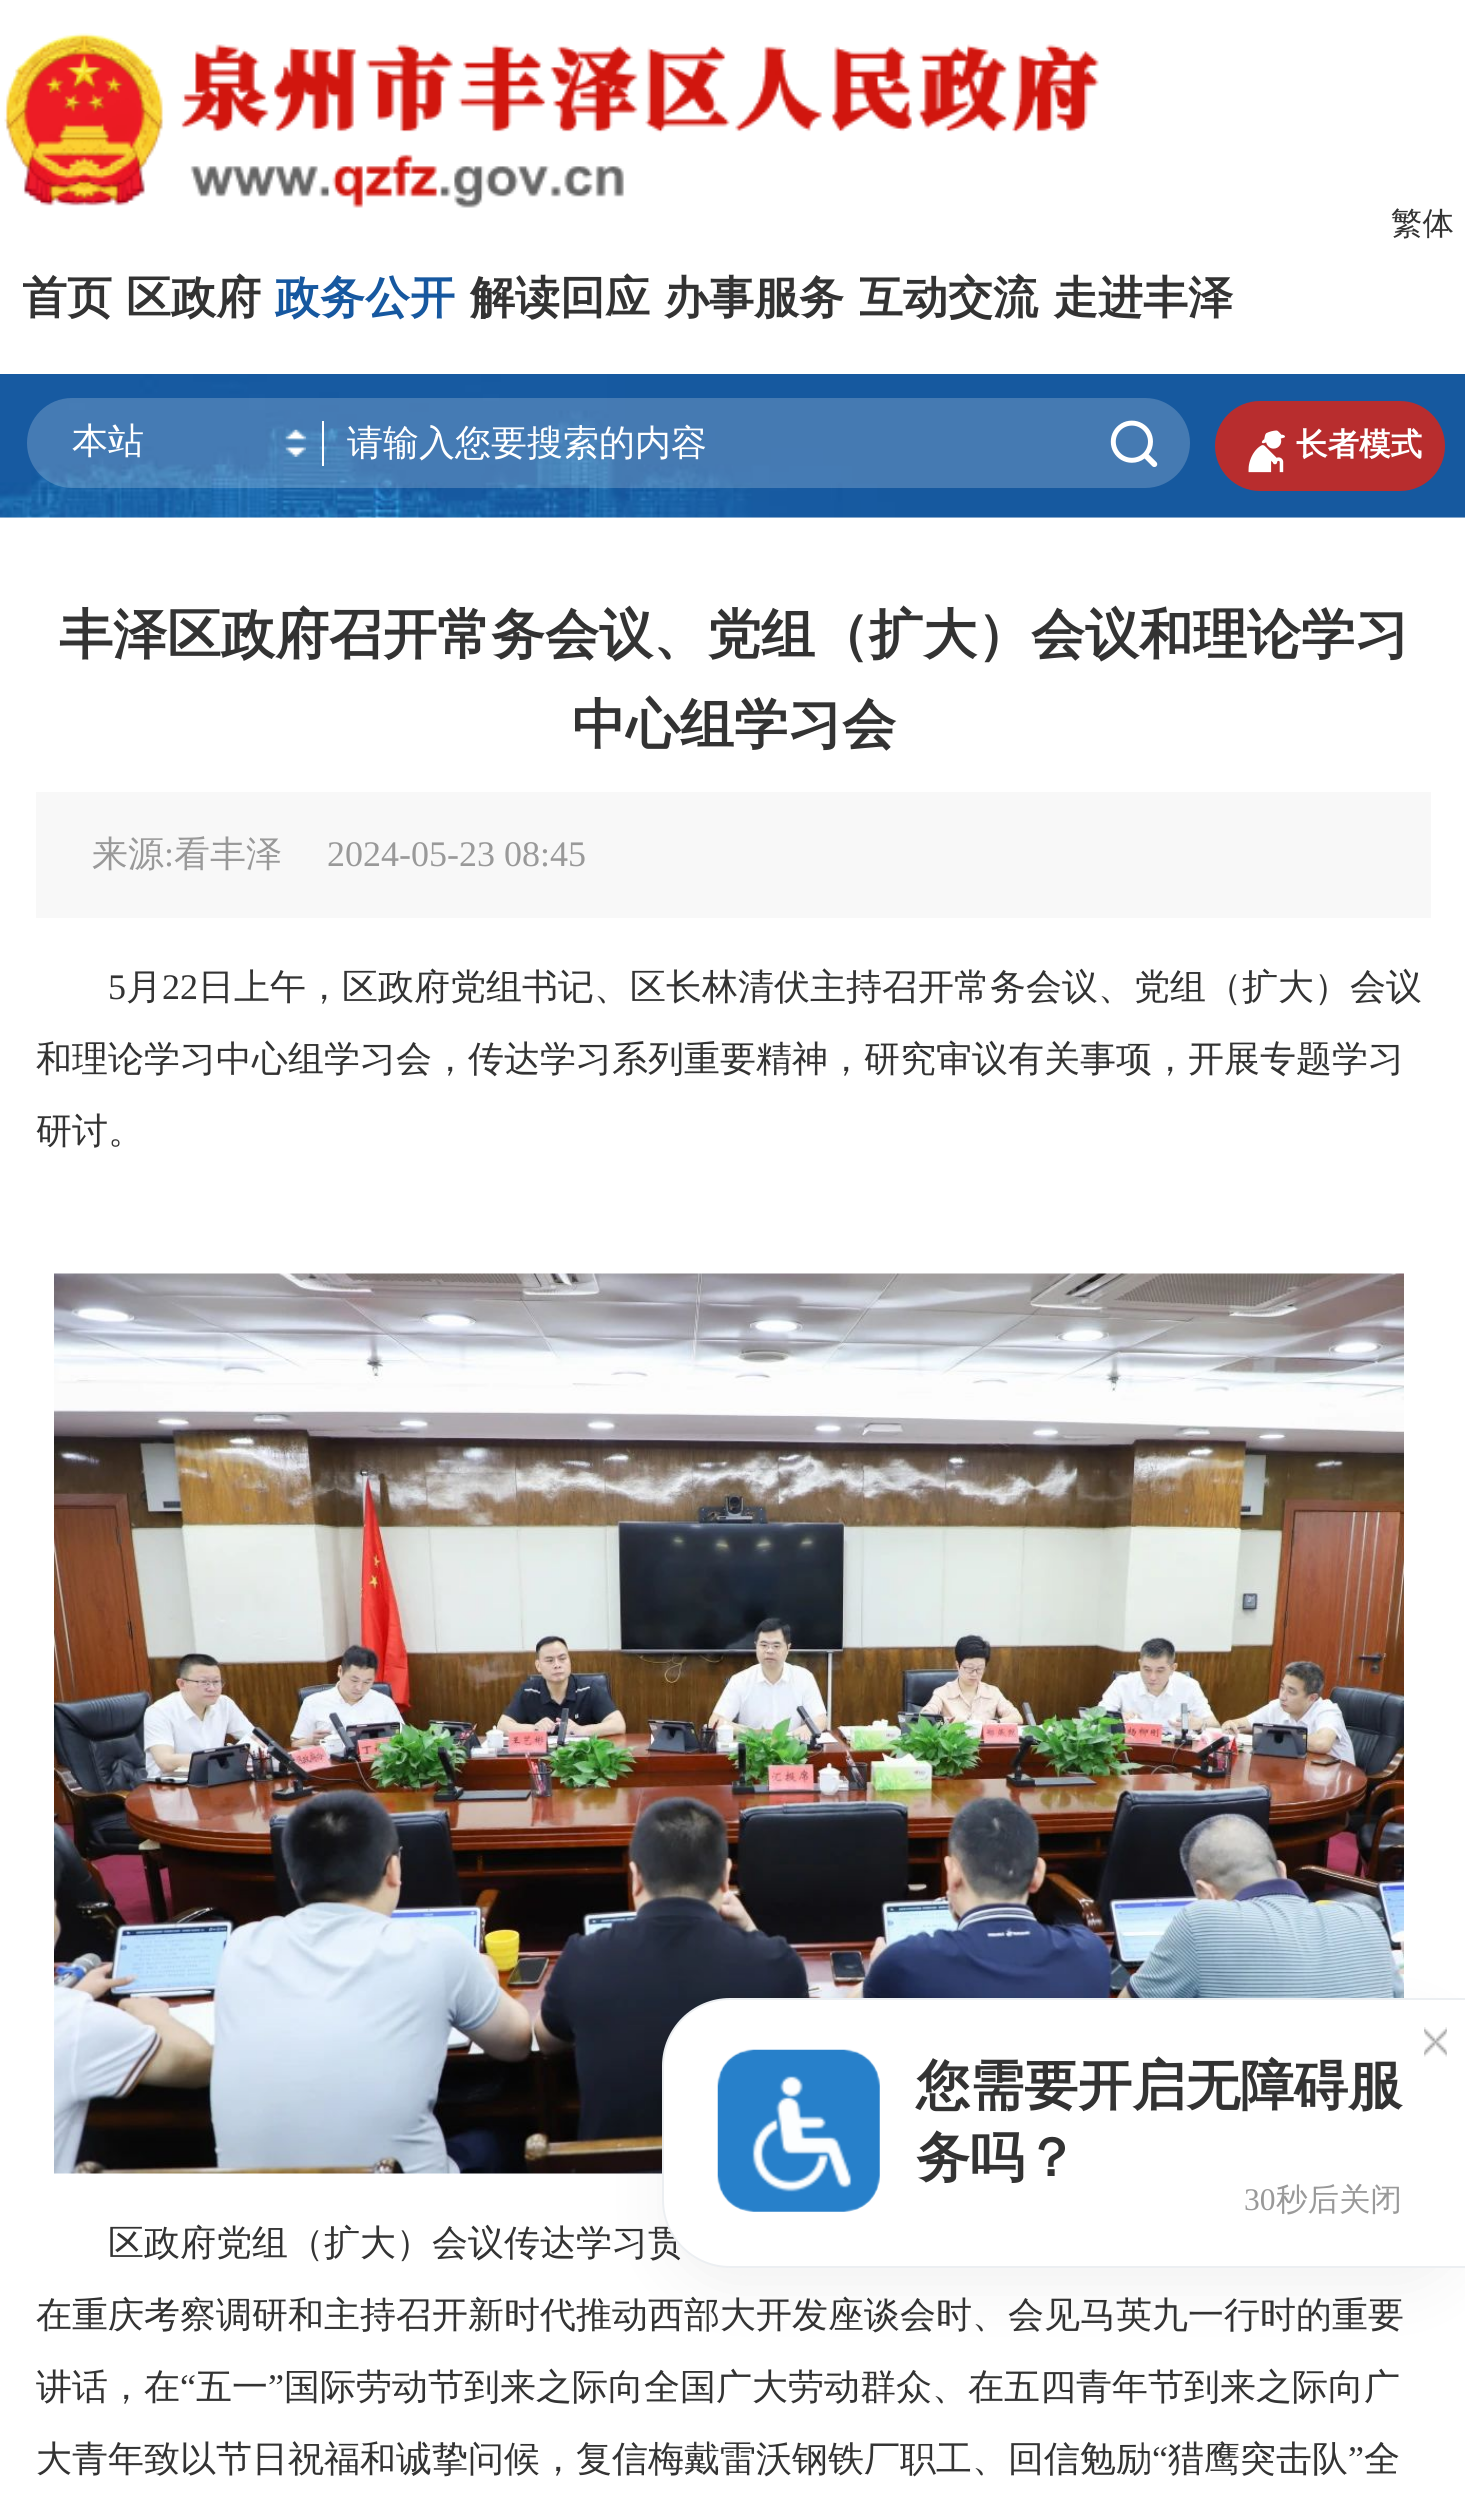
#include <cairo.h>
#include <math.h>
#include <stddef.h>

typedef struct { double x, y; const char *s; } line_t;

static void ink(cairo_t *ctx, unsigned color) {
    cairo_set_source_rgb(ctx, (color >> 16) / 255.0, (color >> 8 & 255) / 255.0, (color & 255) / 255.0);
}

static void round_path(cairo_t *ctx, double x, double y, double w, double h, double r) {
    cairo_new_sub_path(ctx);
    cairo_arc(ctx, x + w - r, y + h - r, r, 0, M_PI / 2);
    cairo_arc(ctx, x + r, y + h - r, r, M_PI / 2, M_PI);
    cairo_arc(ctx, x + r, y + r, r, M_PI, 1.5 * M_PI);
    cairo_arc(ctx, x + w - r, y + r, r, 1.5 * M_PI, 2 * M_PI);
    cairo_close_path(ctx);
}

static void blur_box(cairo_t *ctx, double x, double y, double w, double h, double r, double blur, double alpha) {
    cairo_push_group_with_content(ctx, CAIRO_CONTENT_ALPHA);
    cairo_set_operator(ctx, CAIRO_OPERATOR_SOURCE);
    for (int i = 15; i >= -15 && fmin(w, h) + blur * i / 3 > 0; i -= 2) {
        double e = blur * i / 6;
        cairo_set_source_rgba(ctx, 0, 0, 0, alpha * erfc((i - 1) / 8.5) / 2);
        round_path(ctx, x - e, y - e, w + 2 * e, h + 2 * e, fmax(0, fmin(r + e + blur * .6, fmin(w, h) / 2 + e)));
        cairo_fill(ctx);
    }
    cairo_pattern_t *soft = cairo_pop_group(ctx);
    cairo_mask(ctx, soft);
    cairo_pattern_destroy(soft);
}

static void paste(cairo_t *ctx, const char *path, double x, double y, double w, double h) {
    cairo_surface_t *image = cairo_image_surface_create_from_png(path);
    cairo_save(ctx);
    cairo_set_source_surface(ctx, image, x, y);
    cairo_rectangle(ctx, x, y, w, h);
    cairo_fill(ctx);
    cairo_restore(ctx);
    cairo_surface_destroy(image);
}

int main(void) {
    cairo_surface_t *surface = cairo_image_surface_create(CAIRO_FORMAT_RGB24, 1465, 2518);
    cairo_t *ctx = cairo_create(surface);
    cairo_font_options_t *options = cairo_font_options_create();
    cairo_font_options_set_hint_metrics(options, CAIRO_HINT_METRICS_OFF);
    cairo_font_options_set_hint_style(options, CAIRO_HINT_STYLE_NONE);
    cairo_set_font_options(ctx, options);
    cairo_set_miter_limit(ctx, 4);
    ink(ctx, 0xF2F2F2);
    cairo_paint(ctx);
    ink(ctx, 0xFFFFFF);
    cairo_rectangle(ctx, 0, 0, 1465, 374);
    cairo_fill(ctx);
    paste(ctx, "media/1.png", 4, 33, 1095, 175);
    cairo_select_font_face(ctx, "WenQuanYi Zen Hei Medium", CAIRO_FONT_SLANT_NORMAL, CAIRO_FONT_WEIGHT_NORMAL);
    cairo_set_font_size(ctx, 31.5);
    ink(ctx, 0x333333);
    cairo_move_to(ctx, 1391, 234);
    cairo_show_text(ctx, "繁体");
    cairo_save(ctx);
    cairo_rectangle(ctx, 23, 221, 90, 153);
    cairo_clip(ctx);
    cairo_select_font_face(ctx, "WenQuanYi Zen Hei", CAIRO_FONT_SLANT_NORMAL, CAIRO_FONT_WEIGHT_BOLD);
    cairo_set_font_size(ctx, 45);
    cairo_move_to(ctx, 22, 313);
    cairo_show_text(ctx, "首页");
    cairo_restore(ctx);
    cairo_select_font_face(ctx, "WenQuanYi Zen Hei", CAIRO_FONT_SLANT_NORMAL, CAIRO_FONT_WEIGHT_BOLD);
    cairo_set_font_size(ctx, 45);
    cairo_move_to(ctx, 126, 313);
    cairo_show_text(ctx, "区政府");
    ink(ctx, 0x1658A0);
    cairo_move_to(ctx, 275, 313);
    cairo_show_text(ctx, "政务公开");
    ink(ctx, 0x333333);
    cairo_move_to(ctx, 470, 313);
    cairo_show_text(ctx, "解读回应");
    cairo_move_to(ctx, 664, 313);
    cairo_show_text(ctx, "办事服务");
    cairo_save(ctx);
    cairo_rectangle(ctx, 860, 221, 180, 153);
    cairo_clip(ctx);
    cairo_move_to(ctx, 858, 313);
    cairo_show_text(ctx, "互动交流");
    cairo_restore(ctx);
    cairo_move_to(ctx, 1053, 313);
    cairo_show_text(ctx, "走进丰泽");
    paste(ctx, "media/2.png", 0, 374, 1465, 144);
    cairo_set_source_rgba(ctx, 1, 1, 1, 0.2);
    round_path(ctx, 27, 398, 1163, 90, 45);
    cairo_fill(ctx);
    cairo_select_font_face(ctx, "WenQuanYi Zen Hei Medium", CAIRO_FONT_SLANT_NORMAL, CAIRO_FONT_WEIGHT_NORMAL);
    cairo_set_font_size(ctx, 36);
    ink(ctx, 0xFFFFFF);
    cairo_move_to(ctx, 72, 453);
    cairo_show_text(ctx, "本站");
    paste(ctx, "media/3.png", 285, 429, 21, 28);
    cairo_rectangle(ctx, 322, 421, 2, 45);
    cairo_fill(ctx);
    cairo_move_to(ctx, 347, 455);
    cairo_show_text(ctx, "请输入您要搜索的内容");
    paste(ctx, "media/4.png", 1110, 420, 48, 47);
    ink(ctx, 0xB82D2E);
    round_path(ctx, 1215, 401, 230, 90, 45);
    cairo_fill(ctx);
    paste(ctx, "media/5.png", 1248, 430, 37, 43);
    cairo_select_font_face(ctx, "WenQuanYi Zen Hei", CAIRO_FONT_SLANT_NORMAL, CAIRO_FONT_WEIGHT_BOLD);
    cairo_set_font_size(ctx, 31.5);
    ink(ctx, 0xFFFFFF);
    cairo_move_to(ctx, 1296, 455);
    cairo_show_text(ctx, "长者模式");
    cairo_rectangle(ctx, 0, 518, 1465, 2000);
    cairo_fill(ctx);
    cairo_set_font_size(ctx, 54);
    ink(ctx, 0x333333);
    cairo_move_to(ctx, 59, 653);
    cairo_show_text(ctx, "丰泽区政府召开常务会议、党组（扩大）会议和理论学习");
    cairo_move_to(ctx, 572, 743);
    cairo_show_text(ctx, "中心组学习会");
    ink(ctx, 0xF8F8F8);
    cairo_rectangle(ctx, 36, 792, 1395, 126);
    cairo_fill(ctx);
    cairo_select_font_face(ctx, "WenQuanYi Zen Hei Medium", CAIRO_FONT_SLANT_NORMAL, CAIRO_FONT_WEIGHT_NORMAL);
    cairo_set_font_size(ctx, 36);
    ink(ctx, 0x999999);
    cairo_move_to(ctx, 92, 866);
    cairo_show_text(ctx, "来源");
    cairo_select_font_face(ctx, "Liberation Serif", CAIRO_FONT_SLANT_NORMAL, CAIRO_FONT_WEIGHT_NORMAL);
    cairo_move_to(ctx, 164, 866);
    cairo_show_text(ctx, ":");
    cairo_select_font_face(ctx, "WenQuanYi Zen Hei Medium", CAIRO_FONT_SLANT_NORMAL, CAIRO_FONT_WEIGHT_NORMAL);
    cairo_move_to(ctx, 174, 866);
    cairo_show_text(ctx, "看丰泽");
    cairo_select_font_face(ctx, "Liberation Serif", CAIRO_FONT_SLANT_NORMAL, CAIRO_FONT_WEIGHT_NORMAL);
    cairo_move_to(ctx, 327, 866);
    cairo_show_text(ctx, "2024-05-23 08:45");
    ink(ctx, 0x333333);
    cairo_move_to(ctx, 108, 999);
    cairo_show_text(ctx, "5");
    cairo_select_font_face(ctx, "WenQuanYi Zen Hei Medium", CAIRO_FONT_SLANT_NORMAL, CAIRO_FONT_WEIGHT_NORMAL);
    cairo_move_to(ctx, 126, 999);
    cairo_show_text(ctx, "月");
    cairo_select_font_face(ctx, "Liberation Serif", CAIRO_FONT_SLANT_NORMAL, CAIRO_FONT_WEIGHT_NORMAL);
    cairo_move_to(ctx, 162, 999);
    cairo_show_text(ctx, "22");
    cairo_select_font_face(ctx, "WenQuanYi Zen Hei Medium", CAIRO_FONT_SLANT_NORMAL, CAIRO_FONT_WEIGHT_NORMAL);
    {
        static const line_t items[] = {
            {198, 999, "日上午，区政府党组书记、区长林清伏主持召开常务会议、党组（扩大）会议"},
            {36, 1071, "和理论学习中心组学习会，传达学习系列重要精神，研究审议有关事项，开展专题学习"},
            {36, 1143, "研讨。"},
        };
        for (size_t i = 0; i < sizeof items / sizeof *items; i++) {
            cairo_move_to(ctx, items[i].x, items[i].y);
            cairo_show_text(ctx, items[i].s);
        }
    }
    paste(ctx, "media/6.png", 54, 1273, 1350, 901);
    {
        static const line_t items[] = {
            {108, 2255, "区政府党组（扩大）会议传达学习贯"},
            {36, 2327, "在重庆考察调研和主持召开新时代推动西部大开发座谈会时、会见马英九一行时的重要"},
            {36, 2399, "讲话，在"},
        };
        for (size_t i = 0; i < sizeof items / sizeof *items; i++) {
            cairo_move_to(ctx, items[i].x, items[i].y);
            cairo_show_text(ctx, items[i].s);
        }
    }
    cairo_select_font_face(ctx, "Liberation Serif", CAIRO_FONT_SLANT_NORMAL, CAIRO_FONT_WEIGHT_NORMAL);
    cairo_move_to(ctx, 180, 2399);
    cairo_show_text(ctx, "“");
    cairo_select_font_face(ctx, "WenQuanYi Zen Hei Medium", CAIRO_FONT_SLANT_NORMAL, CAIRO_FONT_WEIGHT_NORMAL);
    cairo_move_to(ctx, 196, 2399);
    cairo_show_text(ctx, "五一");
    cairo_select_font_face(ctx, "Liberation Serif", CAIRO_FONT_SLANT_NORMAL, CAIRO_FONT_WEIGHT_NORMAL);
    cairo_move_to(ctx, 268, 2399);
    cairo_show_text(ctx, "”");
    cairo_select_font_face(ctx, "WenQuanYi Zen Hei Medium", CAIRO_FONT_SLANT_NORMAL, CAIRO_FONT_WEIGHT_NORMAL);
    cairo_move_to(ctx, 284, 2399);
    cairo_show_text(ctx, "国际劳动节到来之际向全国广大劳动群众、在五四青年节到来之际向广");
    cairo_move_to(ctx, 36, 2471);
    cairo_show_text(ctx, "大青年致以节日祝福和诚挚问候，复信梅戴雷沃钢铁厂职工、回信勉励");
    cairo_select_font_face(ctx, "Liberation Serif", CAIRO_FONT_SLANT_NORMAL, CAIRO_FONT_WEIGHT_NORMAL);
    cairo_move_to(ctx, 1152, 2471);
    cairo_show_text(ctx, "“");
    cairo_select_font_face(ctx, "WenQuanYi Zen Hei Medium", CAIRO_FONT_SLANT_NORMAL, CAIRO_FONT_WEIGHT_NORMAL);
    cairo_move_to(ctx, 1168, 2471);
    cairo_show_text(ctx, "猎鹰突击队");
    cairo_select_font_face(ctx, "Liberation Serif", CAIRO_FONT_SLANT_NORMAL, CAIRO_FONT_WEIGHT_NORMAL);
    cairo_move_to(ctx, 1348, 2471);
    cairo_show_text(ctx, "”");
    cairo_select_font_face(ctx, "WenQuanYi Zen Hei Medium", CAIRO_FONT_SLANT_NORMAL, CAIRO_FONT_WEIGHT_NORMAL);
    cairo_move_to(ctx, 1364, 2471);
    cairo_show_text(ctx, "全");
    ink(ctx, 0x040404);
    blur_box(ctx, 662, 2021, 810, 270, 68, 30.5, 0.05);
    ink(ctx, 0xFFFFFF);
    cairo_new_path(ctx);
    cairo_move_to(ctx, 730, 1999);
    cairo_line_to(ctx, 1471, 1999);
    cairo_line_to(ctx, 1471, 2267);
    cairo_line_to(ctx, 730, 2267);
    cairo_curve_to(ctx, 693, 2267, 663, 2237, 663, 2200);
    cairo_line_to(ctx, 663, 2066);
    cairo_curve_to(ctx, 663, 2029, 693, 1999, 730, 1999);
    cairo_close_path(ctx);
    cairo_fill_preserve(ctx);
    ink(ctx, 0xECEFF2);
    cairo_stroke(ctx);
    paste(ctx, "media/7.png", 1424, 2027, 23, 30);
    paste(ctx, "media/8.png", 717, 2049, 163, 163);
    cairo_select_font_face(ctx, "WenQuanYi Zen Hei", CAIRO_FONT_SLANT_NORMAL, CAIRO_FONT_WEIGHT_BOLD);
    cairo_set_font_size(ctx, 54);
    ink(ctx, 0x333333);
    cairo_move_to(ctx, 916, 2104);
    cairo_show_text(ctx, "您需要开启无障碍服");
    cairo_move_to(ctx, 916, 2176);
    cairo_show_text(ctx, "务吗？");
    cairo_select_font_face(ctx, "Liberation Serif", CAIRO_FONT_SLANT_NORMAL, CAIRO_FONT_WEIGHT_NORMAL);
    cairo_set_font_size(ctx, 31.5);
    ink(ctx, 0x999999);
    cairo_move_to(ctx, 1244, 2210);
    cairo_show_text(ctx, "30");
    cairo_select_font_face(ctx, "WenQuanYi Zen Hei Medium", CAIRO_FONT_SLANT_NORMAL, CAIRO_FONT_WEIGHT_NORMAL);
    cairo_move_to(ctx, 1276, 2210);
    cairo_show_text(ctx, "秒后关闭");
    cairo_surface_write_to_png(surface, "image.png");
    cairo_font_options_destroy(options);
    cairo_destroy(ctx);
    cairo_surface_destroy(surface);
    return 0;
}
